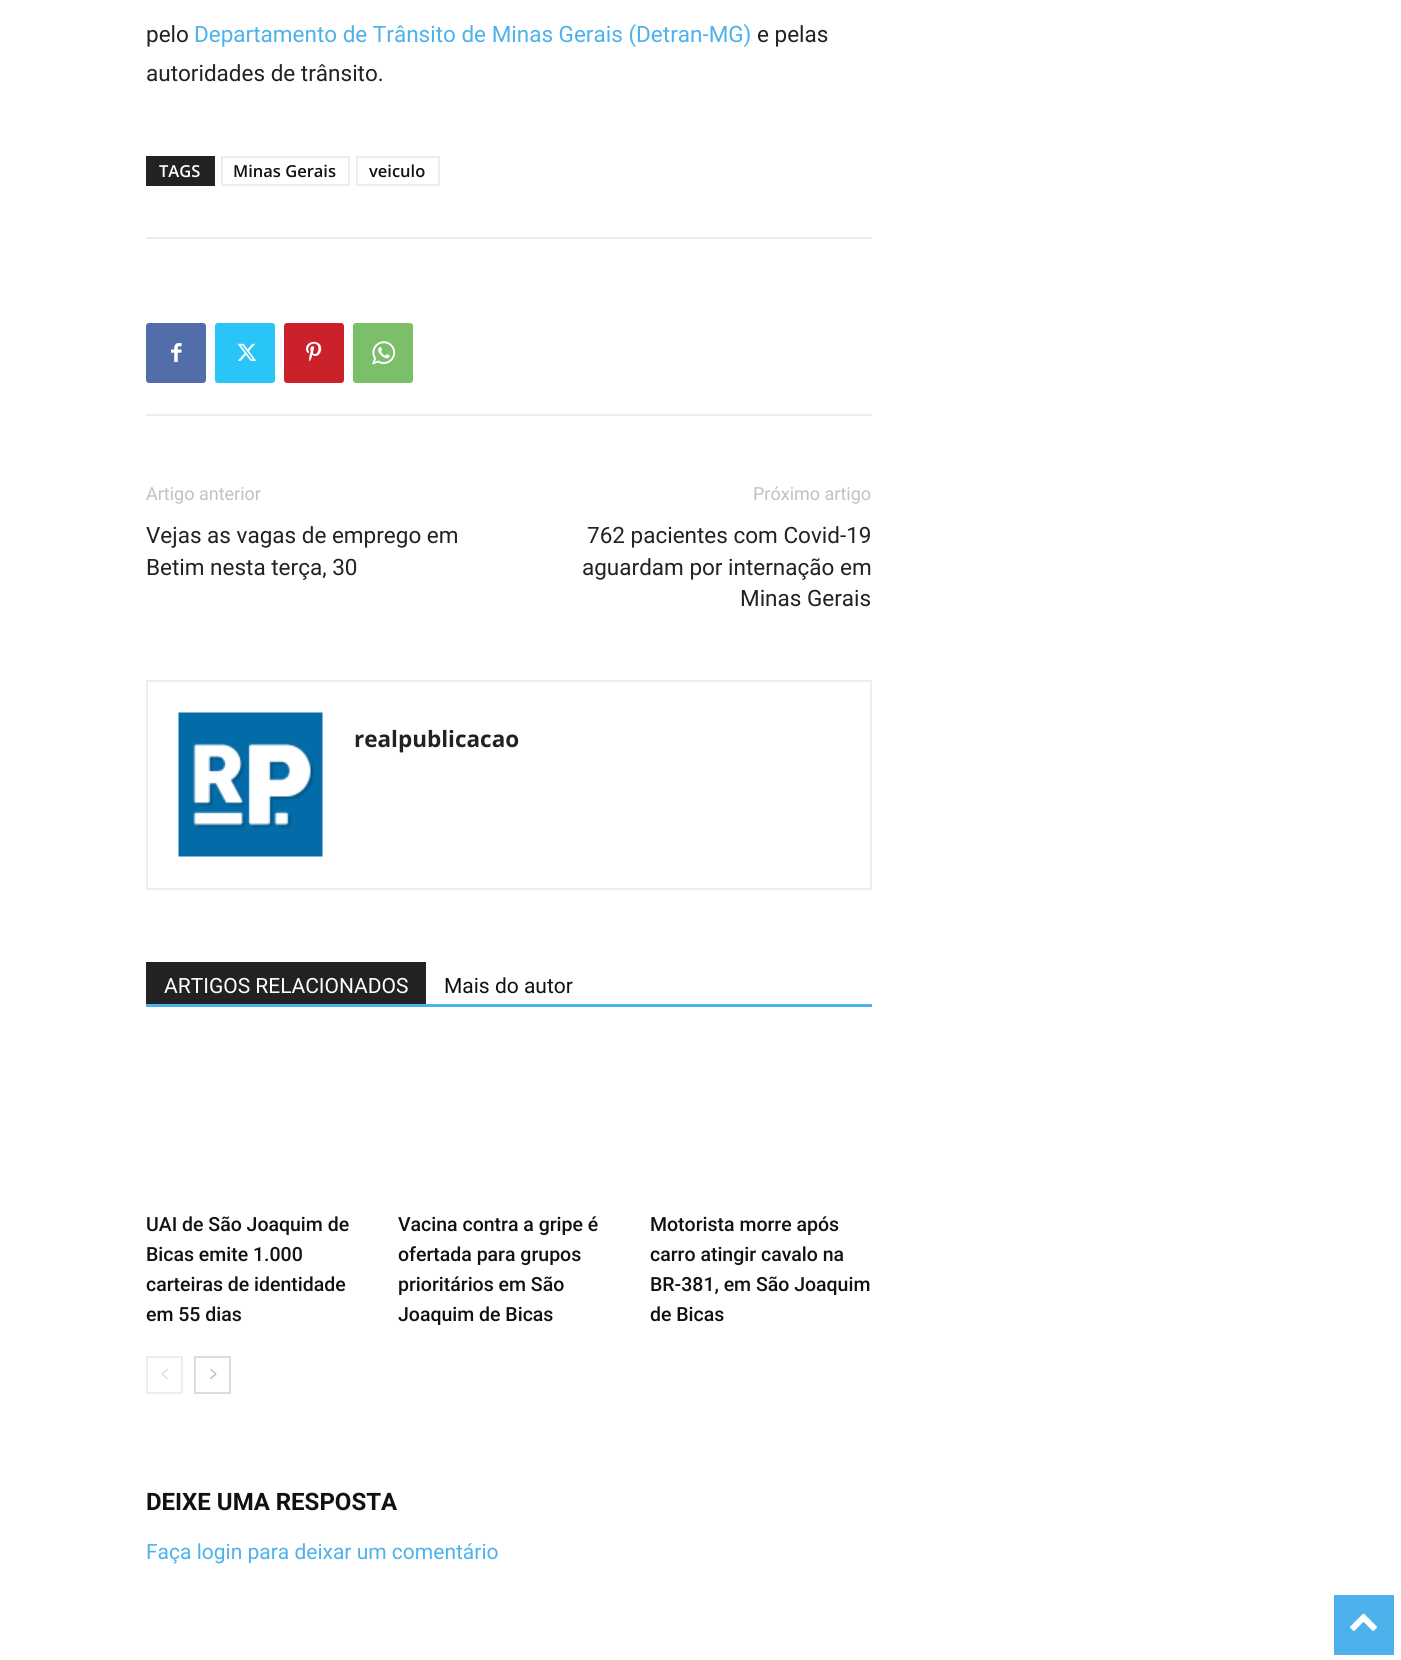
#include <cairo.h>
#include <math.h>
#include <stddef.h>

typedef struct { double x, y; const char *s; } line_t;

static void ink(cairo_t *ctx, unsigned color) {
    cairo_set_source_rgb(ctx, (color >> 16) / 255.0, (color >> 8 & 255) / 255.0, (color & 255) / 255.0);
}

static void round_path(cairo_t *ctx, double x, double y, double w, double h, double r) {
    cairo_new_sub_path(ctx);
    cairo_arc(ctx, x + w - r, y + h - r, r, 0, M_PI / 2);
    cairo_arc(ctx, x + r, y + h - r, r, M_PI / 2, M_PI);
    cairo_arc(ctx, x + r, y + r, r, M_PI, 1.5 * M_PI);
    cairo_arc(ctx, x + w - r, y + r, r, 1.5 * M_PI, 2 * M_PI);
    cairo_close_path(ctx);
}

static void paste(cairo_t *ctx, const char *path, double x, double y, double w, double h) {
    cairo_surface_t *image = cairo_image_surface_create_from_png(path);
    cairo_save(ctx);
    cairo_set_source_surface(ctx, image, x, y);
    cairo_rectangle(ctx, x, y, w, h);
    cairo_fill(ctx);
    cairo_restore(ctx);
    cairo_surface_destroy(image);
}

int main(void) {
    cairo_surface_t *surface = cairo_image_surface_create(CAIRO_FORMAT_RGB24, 1401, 1660);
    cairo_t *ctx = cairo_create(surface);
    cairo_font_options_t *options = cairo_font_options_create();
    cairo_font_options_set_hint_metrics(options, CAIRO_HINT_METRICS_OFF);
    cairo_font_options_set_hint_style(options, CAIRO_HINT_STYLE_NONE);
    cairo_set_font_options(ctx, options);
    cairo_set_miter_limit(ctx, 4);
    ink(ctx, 0xFFFFFF);
    cairo_paint(ctx);
    cairo_select_font_face(ctx, "Roboto", CAIRO_FONT_SLANT_NORMAL, CAIRO_FONT_WEIGHT_NORMAL);
    cairo_set_font_size(ctx, 22.5);
    ink(ctx, 0x222222);
    cairo_move_to(ctx, 146, 42);
    cairo_show_text(ctx, "pelo");
    ink(ctx, 0x4DB2EC);
    cairo_move_to(ctx, 194, 42);
    cairo_show_text(ctx, "Departamento de Trânsito de Minas Gerais (Detran-MG)");
    ink(ctx, 0x222222);
    cairo_move_to(ctx, 757, 42);
    cairo_show_text(ctx, "e pelas");
    cairo_move_to(ctx, 146, 81);
    cairo_show_text(ctx, "autoridades de trânsito.");
    cairo_rectangle(ctx, 146, 156, 69, 30);
    cairo_fill(ctx);
    cairo_select_font_face(ctx, "Open Sans SemiBold", CAIRO_FONT_SLANT_NORMAL, CAIRO_FONT_WEIGHT_NORMAL);
    cairo_set_font_size(ctx, 16.5);
    ink(ctx, 0xFFFFFF);
    cairo_move_to(ctx, 159, 177);
    cairo_show_text(ctx, "TAGS");
    cairo_rectangle(ctx, 222, 157, 127, 28);
    ink(ctx, 0xEDEDED);
    cairo_stroke(ctx);
    ink(ctx, 0x111111);
    cairo_move_to(ctx, 233, 177);
    cairo_show_text(ctx, "Minas Gerais");
    cairo_rectangle(ctx, 357, 157, 82, 28);
    ink(ctx, 0xEDEDED);
    cairo_stroke(ctx);
    ink(ctx, 0x111111);
    cairo_move_to(ctx, 369, 177);
    cairo_show_text(ctx, "veiculo");
    ink(ctx, 0xEDEDED);
    cairo_rectangle(ctx, 146, 237, 726, 2);
    cairo_fill(ctx);
    cairo_rectangle(ctx, 146, 414, 726, 2);
    cairo_fill(ctx);
    ink(ctx, 0x516EAB);
    round_path(ctx, 146, 323, 60, 60, 3);
    cairo_fill(ctx);
    paste(ctx, "media/1.png", 171, 343, 11, 19);
    ink(ctx, 0x29C5F6);
    round_path(ctx, 215, 323, 60, 60, 3);
    cairo_fill(ctx);
    paste(ctx, "media/2.png", 237, 343, 20, 18);
    ink(ctx, 0xCA212A);
    round_path(ctx, 284, 323, 60, 60, 3);
    cairo_fill(ctx);
    paste(ctx, "media/3.png", 306, 341, 16, 21);
    ink(ctx, 0x7BBF6A);
    round_path(ctx, 353, 323, 60, 60, 3);
    cairo_fill(ctx);
    paste(ctx, "media/4.png", 372, 341, 24, 24);
    cairo_select_font_face(ctx, "Roboto", CAIRO_FONT_SLANT_NORMAL, CAIRO_FONT_WEIGHT_NORMAL);
    cairo_set_font_size(ctx, 18);
    ink(ctx, 0xC1C1C1);
    cairo_move_to(ctx, 146, 500);
    cairo_show_text(ctx, "Artigo anterior");
    cairo_set_font_size(ctx, 22.5);
    ink(ctx, 0x222222);
    cairo_move_to(ctx, 146, 543);
    cairo_show_text(ctx, "Vejas as vagas de emprego em");
    cairo_move_to(ctx, 146, 575);
    cairo_show_text(ctx, "Betim nesta terça, 30");
    cairo_set_font_size(ctx, 18);
    ink(ctx, 0xC1C1C1);
    cairo_move_to(ctx, 753, 500);
    cairo_show_text(ctx, "Próximo artigo");
    cairo_set_font_size(ctx, 22.5);
    ink(ctx, 0x222222);
    {
        static const line_t items[] = {
            {587, 543, "762 pacientes com Covid-19"},
            {582, 575, "aguardam por internação em"},
            {740, 606, "Minas Gerais"},
        };
        for (size_t i = 0; i < sizeof items / sizeof *items; i++) {
            cairo_move_to(ctx, items[i].x, items[i].y);
            cairo_show_text(ctx, items[i].s);
        }
    }
    cairo_rectangle(ctx, 147, 681, 724, 208);
    ink(ctx, 0xEDEDED);
    cairo_stroke(ctx);
    paste(ctx, "media/5.png", 178, 712, 145, 145);
    cairo_select_font_face(ctx, "Open Sans", CAIRO_FONT_SLANT_NORMAL, CAIRO_FONT_WEIGHT_BOLD);
    ink(ctx, 0x222222);
    cairo_move_to(ctx, 354, 747);
    cairo_show_text(ctx, "realpublicacao");
    ink(ctx, 0x4DB2EC);
    cairo_rectangle(ctx, 146, 1004, 726, 3);
    cairo_fill(ctx);
    ink(ctx, 0x222222);
    cairo_rectangle(ctx, 146, 962, 280, 42);
    cairo_fill(ctx);
    cairo_select_font_face(ctx, "Roboto", CAIRO_FONT_SLANT_NORMAL, CAIRO_FONT_WEIGHT_NORMAL);
    cairo_set_font_size(ctx, 21);
    ink(ctx, 0xFFFFFF);
    cairo_move_to(ctx, 164, 993);
    cairo_show_text(ctx, "ARTIGOS RELACIONADOS");
    ink(ctx, 0x111111);
    cairo_move_to(ctx, 444, 993);
    cairo_show_text(ctx, "Mais do autor");
    cairo_select_font_face(ctx, "Roboto Medium", CAIRO_FONT_SLANT_NORMAL, CAIRO_FONT_WEIGHT_NORMAL);
    cairo_set_font_size(ctx, 19.5);
    {
        static const line_t items[] = {
            {146, 1231, "UAI de São Joaquim de"},
            {146, 1261, "Bicas emite 1.000"},
            {146, 1291, "carteiras de identidade"},
            {146, 1321, "em 55 dias"},
            {398, 1231, "Vacina contra a gripe é"},
            {398, 1261, "ofertada para grupos"},
            {398, 1291, "prioritários em São"},
            {398, 1321, "Joaquim de Bicas"},
            {650, 1231, "Motorista morre após"},
            {650, 1261, "carro atingir cavalo na"},
            {650, 1291, "BR-381, em São Joaquim"},
            {650, 1321, "de Bicas"},
        };
        for (size_t i = 0; i < sizeof items / sizeof *items; i++) {
            cairo_move_to(ctx, items[i].x, items[i].y);
            cairo_show_text(ctx, items[i].s);
        }
    }
    cairo_rectangle(ctx, 147, 1357, 35, 36);
    ink(ctx, 0xEEEEEE);
    cairo_stroke(ctx);
    paste(ctx, "media/6.png", 161, 1368, 7, 11);
    cairo_rectangle(ctx, 195, 1357, 35, 36);
    ink(ctx, 0xDCDCDC);
    cairo_stroke(ctx);
    paste(ctx, "media/7.png", 210, 1369, 7, 11);
    cairo_select_font_face(ctx, "Roboto", CAIRO_FONT_SLANT_NORMAL, CAIRO_FONT_WEIGHT_BOLD);
    cairo_set_font_size(ctx, 24);
    ink(ctx, 0x111111);
    cairo_move_to(ctx, 146, 1510);
    cairo_show_text(ctx, "DEIXE UMA RESPOSTA");
    cairo_select_font_face(ctx, "Roboto", CAIRO_FONT_SLANT_NORMAL, CAIRO_FONT_WEIGHT_NORMAL);
    cairo_set_font_size(ctx, 21);
    ink(ctx, 0x4DB2EC);
    cairo_move_to(ctx, 146, 1559);
    cairo_show_text(ctx, "Faça login para deixar um comentário");
    cairo_rectangle(ctx, 1334, 1595, 60, 60);
    cairo_fill(ctx);
    paste(ctx, "media/8.png", 1350, 1613, 27, 18);
    cairo_surface_write_to_png(surface, "image.png");
    cairo_font_options_destroy(options);
    cairo_destroy(ctx);
    cairo_surface_destroy(surface);
    return 0;
}
